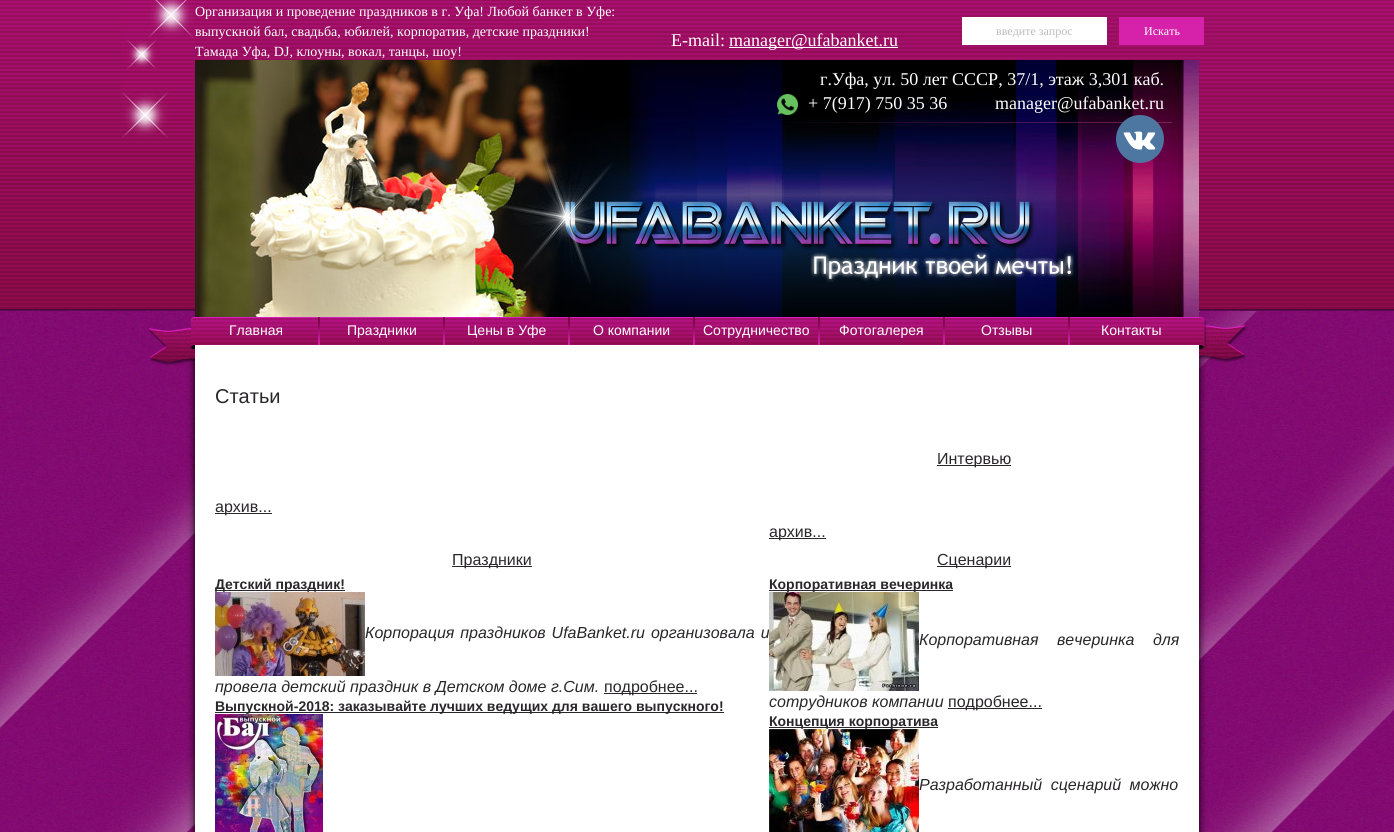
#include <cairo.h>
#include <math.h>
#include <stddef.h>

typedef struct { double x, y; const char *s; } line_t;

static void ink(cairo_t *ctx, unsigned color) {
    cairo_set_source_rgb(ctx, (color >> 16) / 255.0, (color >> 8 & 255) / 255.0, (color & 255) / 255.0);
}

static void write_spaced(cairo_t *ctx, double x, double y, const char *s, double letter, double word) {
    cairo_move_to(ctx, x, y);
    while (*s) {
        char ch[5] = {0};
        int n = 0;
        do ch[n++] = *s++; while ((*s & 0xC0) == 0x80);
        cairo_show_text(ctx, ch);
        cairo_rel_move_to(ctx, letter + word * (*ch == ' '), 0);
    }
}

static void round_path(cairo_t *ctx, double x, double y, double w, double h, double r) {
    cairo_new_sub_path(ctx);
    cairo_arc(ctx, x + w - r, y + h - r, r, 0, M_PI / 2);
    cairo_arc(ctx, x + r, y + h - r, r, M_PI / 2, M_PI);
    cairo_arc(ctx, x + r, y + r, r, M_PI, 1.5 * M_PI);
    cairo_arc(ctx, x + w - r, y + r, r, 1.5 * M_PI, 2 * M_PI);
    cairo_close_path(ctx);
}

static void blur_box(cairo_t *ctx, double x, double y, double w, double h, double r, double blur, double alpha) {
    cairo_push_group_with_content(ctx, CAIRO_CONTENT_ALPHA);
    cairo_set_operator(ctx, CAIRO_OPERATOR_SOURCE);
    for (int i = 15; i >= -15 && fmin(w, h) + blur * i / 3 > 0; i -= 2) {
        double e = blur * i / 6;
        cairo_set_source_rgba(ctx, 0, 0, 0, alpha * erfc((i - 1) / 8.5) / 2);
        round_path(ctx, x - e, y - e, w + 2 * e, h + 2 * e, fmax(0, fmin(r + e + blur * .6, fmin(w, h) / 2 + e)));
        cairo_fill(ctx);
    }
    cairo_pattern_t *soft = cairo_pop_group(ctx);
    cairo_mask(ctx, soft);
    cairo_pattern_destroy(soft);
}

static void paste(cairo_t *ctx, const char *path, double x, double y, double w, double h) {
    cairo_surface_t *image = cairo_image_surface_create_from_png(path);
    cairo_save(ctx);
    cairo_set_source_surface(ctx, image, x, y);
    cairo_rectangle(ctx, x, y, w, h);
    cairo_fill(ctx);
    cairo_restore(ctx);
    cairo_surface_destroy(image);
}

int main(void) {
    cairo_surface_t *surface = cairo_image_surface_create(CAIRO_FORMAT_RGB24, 1394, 832);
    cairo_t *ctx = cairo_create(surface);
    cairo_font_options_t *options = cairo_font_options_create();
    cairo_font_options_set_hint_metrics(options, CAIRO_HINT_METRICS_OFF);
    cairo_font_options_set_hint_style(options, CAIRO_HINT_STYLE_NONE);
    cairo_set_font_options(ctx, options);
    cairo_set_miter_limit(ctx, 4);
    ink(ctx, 0xFFFFFF);
    cairo_paint(ctx);
    paste(ctx, "media/1.png", 0, 0, 1394, 311);
    paste(ctx, "media/2.png", 0, 311, 1394, 521);
    paste(ctx, "media/3.png", 783, 60, 416, 257);
    paste(ctx, "media/4.png", 121, 0, 74, 138);
    cairo_select_font_face(ctx, "Liberation Serif", CAIRO_FONT_SLANT_NORMAL, CAIRO_FONT_WEIGHT_NORMAL);
    cairo_set_font_size(ctx, 14);
    ink(ctx, 0xFFFFFF);
    {
        static const line_t items[] = {
            {195, 16, "Организация и проведение праздников в г. Уфа! Любой банкет в Уфе:"},
            {195, 36, "выпускной бал, свадьба, юбилей, корпоратив, детские праздники!"},
            {195, 56, "Тамада Уфа, DJ, клоуны, вокал, танцы, шоу!"},
        };
        for (size_t i = 0; i < sizeof items / sizeof *items; i++) {
            cairo_move_to(ctx, items[i].x, items[i].y);
            cairo_show_text(ctx, items[i].s);
        }
    }
    cairo_set_font_size(ctx, 18);
    cairo_move_to(ctx, 671, 46);
    cairo_show_text(ctx, "E-mail:");
    cairo_rectangle(ctx, 729, 47, 169, 1);
    cairo_fill(ctx);
    cairo_move_to(ctx, 729, 46);
    cairo_show_text(ctx, "manager@ufabanket.ru");
    cairo_rectangle(ctx, 962, 17, 145, 28);
    cairo_fill(ctx);
    cairo_set_font_size(ctx, 12);
    ink(ctx, 0xBBBBBB);
    cairo_move_to(ctx, 996, 35);
    cairo_show_text(ctx, "введите запрос");
    ink(ctx, 0xD621AA);
    cairo_rectangle(ctx, 1119, 17, 85, 28);
    cairo_fill(ctx);
    ink(ctx, 0xFFFFFF);
    cairo_move_to(ctx, 1144, 35);
    cairo_show_text(ctx, "Искать");
    paste(ctx, "media/5.png", 195, 60, 588, 257);
    cairo_set_font_size(ctx, 18);
    cairo_move_to(ctx, 820, 85);
    cairo_show_text(ctx, "г.Уфа, ул. 50 лет СССР, 37/1, этаж 3,301 каб.");
    paste(ctx, "media/6.png", 777, 94, 21, 21);
    cairo_move_to(ctx, 808, 109);
    cairo_show_text(ctx, "+ 7(917) 750 35 36");
    cairo_move_to(ctx, 995, 109);
    cairo_show_text(ctx, "manager@ufabanket.ru");
    paste(ctx, "media/7.png", 1116, 115, 48, 48);
    ink(ctx, 0x000000);
    blur_box(ctx, 195, 345, 1004, 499, 0, 4, 1);
    paste(ctx, "media/8.png", 195, 317, 1004, 28);
    paste(ctx, "media/9.png", 149, 317, 46, 48);
    cairo_select_font_face(ctx, "Liberation Sans", CAIRO_FONT_SLANT_NORMAL, CAIRO_FONT_WEIGHT_NORMAL);
    cairo_set_font_size(ctx, 14);
    ink(ctx, 0xFFFFFF);
    cairo_move_to(ctx, 229, 335);
    cairo_show_text(ctx, "Главная");
    paste(ctx, "media/10.png", 318, 317, 2, 28);
    cairo_move_to(ctx, 347, 335);
    cairo_show_text(ctx, "Праздники");
    paste(ctx, "media/10.png", 443, 317, 2, 28);
    cairo_move_to(ctx, 467, 335);
    cairo_show_text(ctx, "Цены в Уфе");
    paste(ctx, "media/10.png", 568, 317, 2, 28);
    cairo_move_to(ctx, 593, 335);
    cairo_show_text(ctx, "О компании");
    paste(ctx, "media/10.png", 693, 317, 2, 28);
    cairo_move_to(ctx, 703, 335);
    cairo_show_text(ctx, "Сотрудничество");
    paste(ctx, "media/10.png", 818, 317, 2, 28);
    cairo_move_to(ctx, 839, 335);
    cairo_show_text(ctx, "Фотогалерея");
    paste(ctx, "media/10.png", 943, 317, 2, 28);
    cairo_move_to(ctx, 981, 335);
    cairo_show_text(ctx, "Отзывы");
    paste(ctx, "media/10.png", 1068, 317, 2, 28);
    cairo_move_to(ctx, 1101, 335);
    cairo_show_text(ctx, "Контакты");
    paste(ctx, "media/11.png", 1199, 317, 48, 46);
    cairo_rectangle(ctx, 195, 345, 1004, 487);
    cairo_fill(ctx);
    cairo_set_font_size(ctx, 20);
    ink(ctx, 0x2A272A);
    cairo_move_to(ctx, 215, 403);
    cairo_show_text(ctx, "Статьи");
    cairo_rectangle(ctx, 215, 513, 57, 1);
    cairo_fill(ctx);
    cairo_set_font_size(ctx, 16);
    cairo_move_to(ctx, 215, 512);
    cairo_show_text(ctx, "архив...");
    cairo_rectangle(ctx, 937, 465, 74, 1);
    cairo_fill(ctx);
    cairo_move_to(ctx, 937, 464);
    cairo_show_text(ctx, "Интервью");
    cairo_rectangle(ctx, 769, 538, 57, 1);
    cairo_fill(ctx);
    cairo_move_to(ctx, 769, 537);
    cairo_show_text(ctx, "архив...");
    cairo_rectangle(ctx, 452, 566, 80, 1);
    cairo_fill(ctx);
    cairo_move_to(ctx, 452, 565);
    cairo_show_text(ctx, "Праздники");
    cairo_rectangle(ctx, 215, 590, 130, 1);
    cairo_fill(ctx);
    cairo_select_font_face(ctx, "Liberation Sans", CAIRO_FONT_SLANT_NORMAL, CAIRO_FONT_WEIGHT_BOLD);
    cairo_set_font_size(ctx, 14);
    cairo_move_to(ctx, 215, 589);
    cairo_show_text(ctx, "Детский праздник!");
    paste(ctx, "media/12.png", 215, 592, 150, 84);
    cairo_select_font_face(ctx, "Liberation Sans", CAIRO_FONT_SLANT_ITALIC, CAIRO_FONT_WEIGHT_NORMAL);
    cairo_set_font_size(ctx, 16);
    write_spaced(ctx, 365, 638, "Корпорация праздников UfaBanket.ru организовала и", 0, 1.5);
    cairo_move_to(ctx, 215, 692);
    cairo_show_text(ctx, "провела детский праздник в Детском доме г.Сим.");
    cairo_rectangle(ctx, 604, 693, 93, 1);
    cairo_fill(ctx);
    cairo_select_font_face(ctx, "Liberation Sans", CAIRO_FONT_SLANT_NORMAL, CAIRO_FONT_WEIGHT_NORMAL);
    cairo_move_to(ctx, 604, 692);
    cairo_show_text(ctx, "подробнее...");
    cairo_rectangle(ctx, 215, 712, 509, 1);
    cairo_fill(ctx);
    cairo_select_font_face(ctx, "Liberation Sans", CAIRO_FONT_SLANT_NORMAL, CAIRO_FONT_WEIGHT_BOLD);
    cairo_set_font_size(ctx, 14);
    cairo_move_to(ctx, 215, 711);
    cairo_show_text(ctx, "Выпускной-2018: заказывайте лучших ведущих для вашего выпускного!");
    paste(ctx, "media/13.png", 215, 714, 108, 118);
    cairo_rectangle(ctx, 937, 566, 74, 1);
    cairo_fill(ctx);
    cairo_select_font_face(ctx, "Liberation Sans", CAIRO_FONT_SLANT_NORMAL, CAIRO_FONT_WEIGHT_NORMAL);
    cairo_set_font_size(ctx, 16);
    cairo_move_to(ctx, 937, 565);
    cairo_show_text(ctx, "Сценарии");
    cairo_rectangle(ctx, 769, 590, 184, 1);
    cairo_fill(ctx);
    cairo_select_font_face(ctx, "Liberation Sans", CAIRO_FONT_SLANT_NORMAL, CAIRO_FONT_WEIGHT_BOLD);
    cairo_set_font_size(ctx, 14);
    cairo_move_to(ctx, 769, 589);
    cairo_show_text(ctx, "Корпоративная вечеринка");
    paste(ctx, "media/14.png", 769, 592, 150, 99);
    cairo_select_font_face(ctx, "Liberation Sans", CAIRO_FONT_SLANT_ITALIC, CAIRO_FONT_WEIGHT_NORMAL);
    cairo_set_font_size(ctx, 16);
    write_spaced(ctx, 919, 645, "Корпоративная вечеринка для", 0, 14);
    cairo_move_to(ctx, 769, 707);
    cairo_show_text(ctx, "сотрудников компании");
    cairo_rectangle(ctx, 948, 708, 94, 1);
    cairo_fill(ctx);
    cairo_select_font_face(ctx, "Liberation Sans", CAIRO_FONT_SLANT_NORMAL, CAIRO_FONT_WEIGHT_NORMAL);
    cairo_move_to(ctx, 948, 707);
    cairo_show_text(ctx, "подробнее...");
    cairo_rectangle(ctx, 769, 727, 169, 1);
    cairo_fill(ctx);
    cairo_select_font_face(ctx, "Liberation Sans", CAIRO_FONT_SLANT_NORMAL, CAIRO_FONT_WEIGHT_BOLD);
    cairo_set_font_size(ctx, 14);
    cairo_move_to(ctx, 769, 726);
    cairo_show_text(ctx, "Концепция корпоратива");
    paste(ctx, "media/15.png", 769, 729, 150, 103);
    cairo_select_font_face(ctx, "Liberation Sans", CAIRO_FONT_SLANT_ITALIC, CAIRO_FONT_WEIGHT_NORMAL);
    cairo_set_font_size(ctx, 16);
    write_spaced(ctx, 919, 790, "Разработанный сценарий можно", 0, 4);
    cairo_surface_write_to_png(surface, "image.png");
    cairo_font_options_destroy(options);
    cairo_destroy(ctx);
    cairo_surface_destroy(surface);
    return 0;
}
